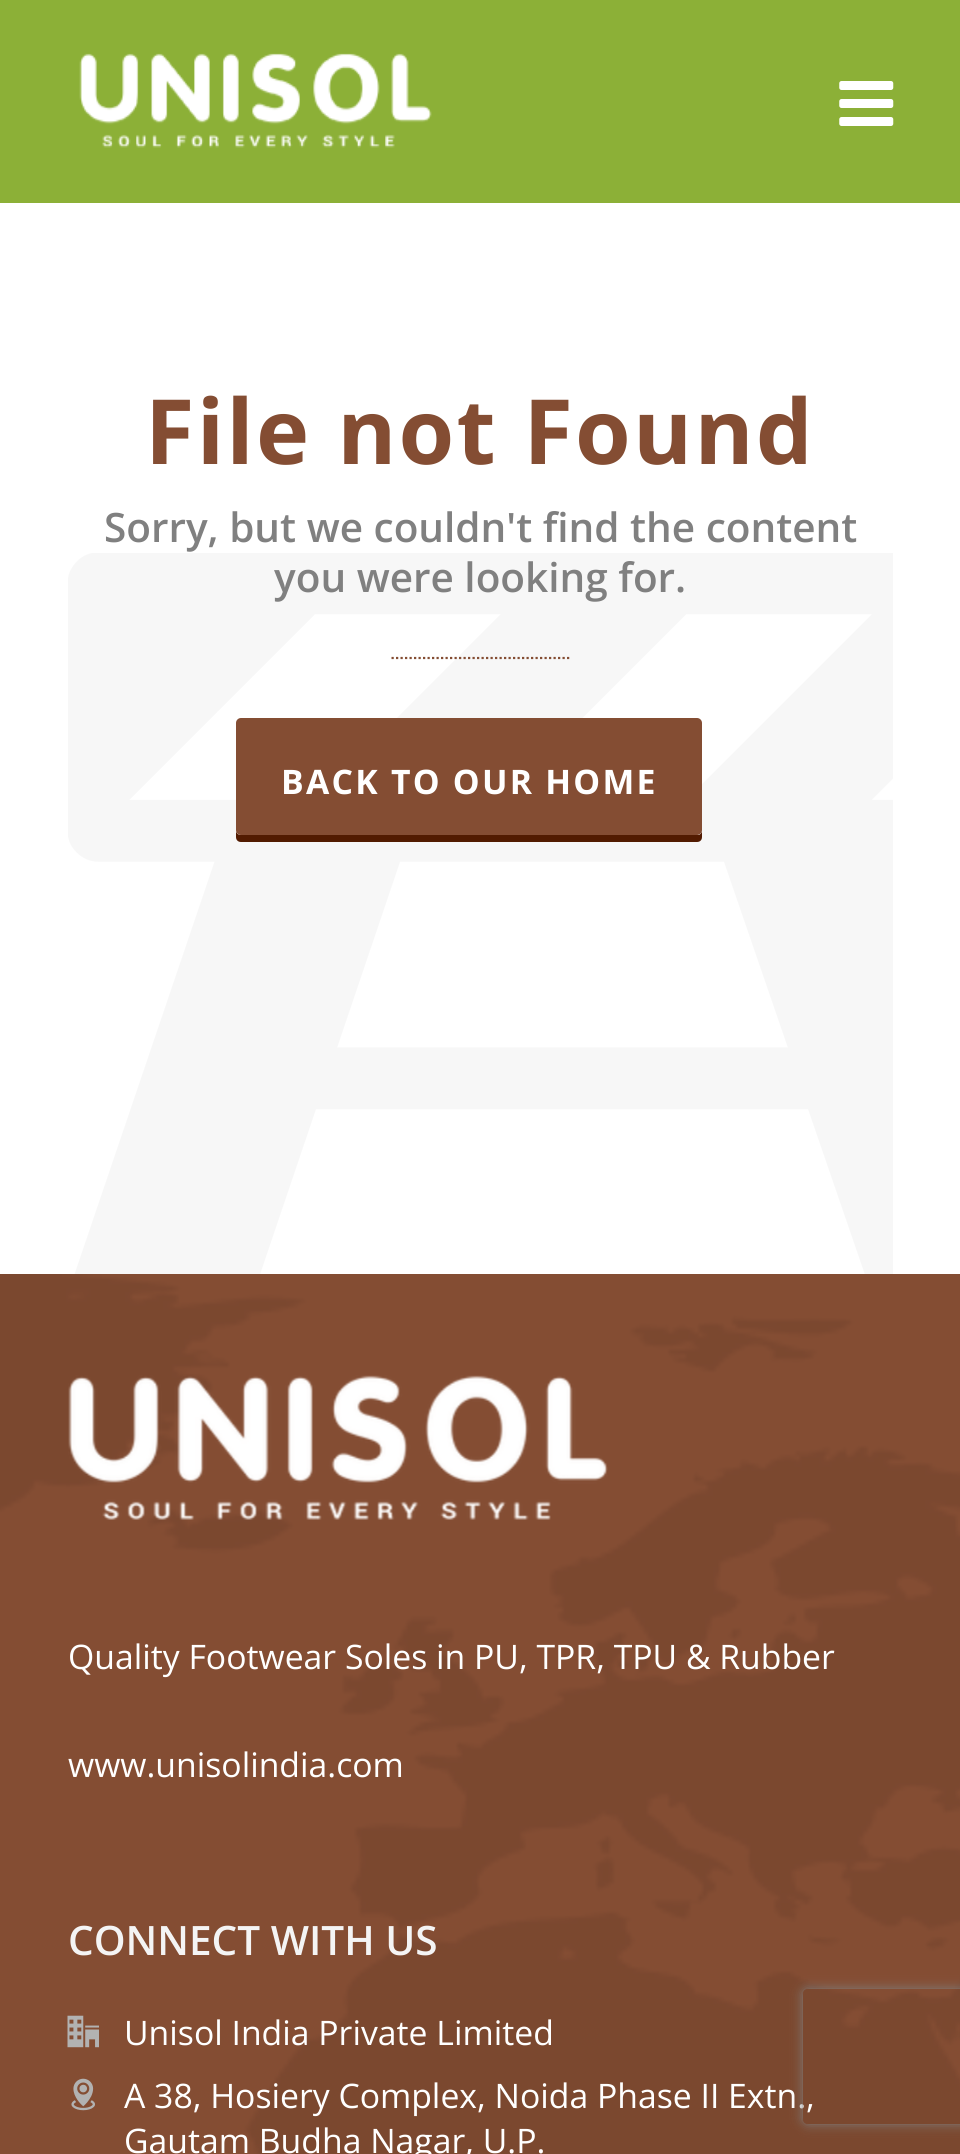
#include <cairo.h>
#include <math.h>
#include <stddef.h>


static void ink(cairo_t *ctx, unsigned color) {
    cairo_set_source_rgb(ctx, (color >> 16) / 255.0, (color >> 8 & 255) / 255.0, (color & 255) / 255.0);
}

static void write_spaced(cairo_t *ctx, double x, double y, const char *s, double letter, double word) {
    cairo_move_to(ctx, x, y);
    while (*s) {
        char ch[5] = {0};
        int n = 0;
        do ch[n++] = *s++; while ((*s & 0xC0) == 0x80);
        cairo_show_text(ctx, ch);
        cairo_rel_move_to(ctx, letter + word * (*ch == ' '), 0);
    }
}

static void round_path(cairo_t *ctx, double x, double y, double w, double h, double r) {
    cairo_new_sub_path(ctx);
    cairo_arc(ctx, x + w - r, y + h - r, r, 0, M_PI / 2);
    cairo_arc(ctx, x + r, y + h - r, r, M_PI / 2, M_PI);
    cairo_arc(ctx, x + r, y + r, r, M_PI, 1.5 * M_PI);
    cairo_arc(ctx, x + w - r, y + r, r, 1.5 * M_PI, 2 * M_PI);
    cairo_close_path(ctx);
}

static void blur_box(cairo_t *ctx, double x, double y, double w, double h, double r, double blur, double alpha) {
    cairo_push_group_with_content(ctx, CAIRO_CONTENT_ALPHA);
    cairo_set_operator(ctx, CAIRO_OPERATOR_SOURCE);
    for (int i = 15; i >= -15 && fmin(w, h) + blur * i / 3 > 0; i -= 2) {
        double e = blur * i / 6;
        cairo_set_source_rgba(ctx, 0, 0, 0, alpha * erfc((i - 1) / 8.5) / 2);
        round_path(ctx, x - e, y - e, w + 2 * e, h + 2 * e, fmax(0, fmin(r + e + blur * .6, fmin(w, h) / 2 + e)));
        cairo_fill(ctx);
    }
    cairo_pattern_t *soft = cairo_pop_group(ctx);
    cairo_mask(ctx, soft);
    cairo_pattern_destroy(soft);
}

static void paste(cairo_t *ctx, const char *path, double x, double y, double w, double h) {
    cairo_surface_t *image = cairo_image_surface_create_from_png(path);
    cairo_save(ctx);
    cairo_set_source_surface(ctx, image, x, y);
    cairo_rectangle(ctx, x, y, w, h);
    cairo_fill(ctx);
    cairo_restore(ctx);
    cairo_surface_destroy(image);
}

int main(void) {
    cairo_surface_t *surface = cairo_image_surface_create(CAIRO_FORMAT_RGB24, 960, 2154);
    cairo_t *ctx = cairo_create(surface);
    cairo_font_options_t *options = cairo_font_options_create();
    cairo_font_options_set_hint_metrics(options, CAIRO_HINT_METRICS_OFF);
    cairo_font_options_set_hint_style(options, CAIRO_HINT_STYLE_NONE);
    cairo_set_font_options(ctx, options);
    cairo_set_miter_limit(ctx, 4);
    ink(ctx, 0xFFFFFF);
    cairo_paint(ctx);
    ink(ctx, 0x8CB037);
    cairo_rectangle(ctx, 0, 0, 960, 203);
    cairo_fill(ctx);
    paste(ctx, "media/1.png", 79, 53, 353, 95);
    paste(ctx, "media/2.png", 839, 81, 55, 45);
    cairo_select_font_face(ctx, "Open Sans", CAIRO_FONT_SLANT_NORMAL, CAIRO_FONT_WEIGHT_BOLD);
    cairo_set_font_size(ctx, 90);
    ink(ctx, 0x844D33);
    write_spaced(ctx, 145, 464, "File not Found", 2.25, 0);
    cairo_select_font_face(ctx, "Open Sans SemiBold", CAIRO_FONT_SLANT_NORMAL, CAIRO_FONT_WEIGHT_NORMAL);
    cairo_set_font_size(ctx, 40.5);
    ink(ctx, 0x808080);
    cairo_move_to(ctx, 104, 542);
    cairo_show_text(ctx, "Sorry, but we couldn't find the content");
    paste(ctx, "media/3.png", 68, 553, 825, 721);
    cairo_move_to(ctx, 274, 592);
    cairo_show_text(ctx, "you were looking for.");
    cairo_new_path(ctx);
    cairo_move_to(ctx, 391.5, 658);
    cairo_line_to(ctx, 571.5, 658);
    ink(ctx, 0x844D33);
    cairo_set_line_width(ctx, 2.2);
    cairo_set_dash(ctx, (double[]){2.25, 2.25}, 2, 0);
    cairo_stroke(ctx);
    ink(ctx, 0x521B01);
    cairo_new_path(ctx);
    cairo_move_to(ctx, 236, 728);
    cairo_line_to(ctx, 236, 837);
    cairo_curve_to(ctx, 236, 840, 238, 842, 241, 842);
    cairo_line_to(ctx, 697, 842);
    cairo_curve_to(ctx, 700, 842, 702, 840, 702, 837);
    cairo_line_to(ctx, 702, 830);
    cairo_curve_to(ctx, 702, 833, 700, 835, 698, 835);
    cairo_line_to(ctx, 241, 835);
    cairo_curve_to(ctx, 238, 835, 236, 833, 236, 830);
    cairo_close_path(ctx);
    cairo_fill(ctx);
    ink(ctx, 0x844D33);
    round_path(ctx, 236, 718, 466, 117, 5);
    cairo_fill(ctx);
    cairo_select_font_face(ctx, "Open Sans", CAIRO_FONT_SLANT_NORMAL, CAIRO_FONT_WEIGHT_BOLD);
    cairo_set_font_size(ctx, 33.75);
    ink(ctx, 0xFFFFFF);
    write_spaced(ctx, 281, 794, "BACK TO OUR HOME", 2.25, 0);
    ink(ctx, 0x844D33);
    cairo_rectangle(ctx, 0, 1274, 960, 880);
    cairo_fill(ctx);
    paste(ctx, "media/4.png", 0, 1274, 960, 880);
    paste(ctx, "media/5.png", 68, 1375, 540, 145);
    cairo_select_font_face(ctx, "Open Sans", CAIRO_FONT_SLANT_NORMAL, CAIRO_FONT_WEIGHT_NORMAL);
    ink(ctx, 0xFFFFFF);
    cairo_move_to(ctx, 68, 1669);
    cairo_show_text(ctx, "Quality Footwear Soles in PU, TPR, TPU & Rubber");
    cairo_move_to(ctx, 68, 1777);
    cairo_show_text(ctx, "www.unisolindia.com");
    cairo_select_font_face(ctx, "Open Sans SemiBold", CAIRO_FONT_SLANT_NORMAL, CAIRO_FONT_WEIGHT_NORMAL);
    cairo_set_font_size(ctx, 40.5);
    ink(ctx, 0xF4F4F4);
    cairo_move_to(ctx, 68, 1955);
    cairo_show_text(ctx, "CONNECT WITH US");
    paste(ctx, "media/6.png", 67, 2015, 32, 33);
    cairo_select_font_face(ctx, "Open Sans", CAIRO_FONT_SLANT_NORMAL, CAIRO_FONT_WEIGHT_NORMAL);
    cairo_set_font_size(ctx, 33.75);
    ink(ctx, 0xFFFFFF);
    cairo_move_to(ctx, 124, 2045);
    cairo_show_text(ctx, "Unisol India Private Limited");
    paste(ctx, "media/7.png", 71, 2078, 24, 33);
    cairo_move_to(ctx, 124, 2108);
    cairo_show_text(ctx, "A 38, Hosiery Complex, Noida Phase II Extn.,");
    cairo_move_to(ctx, 124, 2153);
    cairo_show_text(ctx, "Gautam Budha Nagar, U.P.");
    cairo_save(ctx);
    cairo_set_fill_rule(ctx, CAIRO_FILL_RULE_EVEN_ODD);
    cairo_new_path(ctx);
    cairo_move_to(ctx, 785, 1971);
    cairo_line_to(ctx, 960, 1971);
    cairo_line_to(ctx, 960, 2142);
    cairo_line_to(ctx, 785, 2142);
    cairo_close_path(ctx);
    cairo_move_to(ctx, 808, 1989);
    cairo_line_to(ctx, 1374, 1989);
    cairo_curve_to(ctx, 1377, 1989, 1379, 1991, 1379, 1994);
    cairo_line_to(ctx, 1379, 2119);
    cairo_curve_to(ctx, 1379, 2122, 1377, 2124, 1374, 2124);
    cairo_line_to(ctx, 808, 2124);
    cairo_curve_to(ctx, 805, 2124, 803, 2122, 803, 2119);
    cairo_line_to(ctx, 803, 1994);
    cairo_curve_to(ctx, 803, 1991, 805, 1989, 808, 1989);
    cairo_close_path(ctx);
    cairo_clip(ctx);
    ink(ctx, 0x808080);
    blur_box(ctx, 803, 1989, 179, 135, 5, 5.5, 1);
    cairo_restore(ctx);
    cairo_surface_write_to_png(surface, "image.png");
    cairo_font_options_destroy(options);
    cairo_destroy(ctx);
    cairo_surface_destroy(surface);
    return 0;
}
